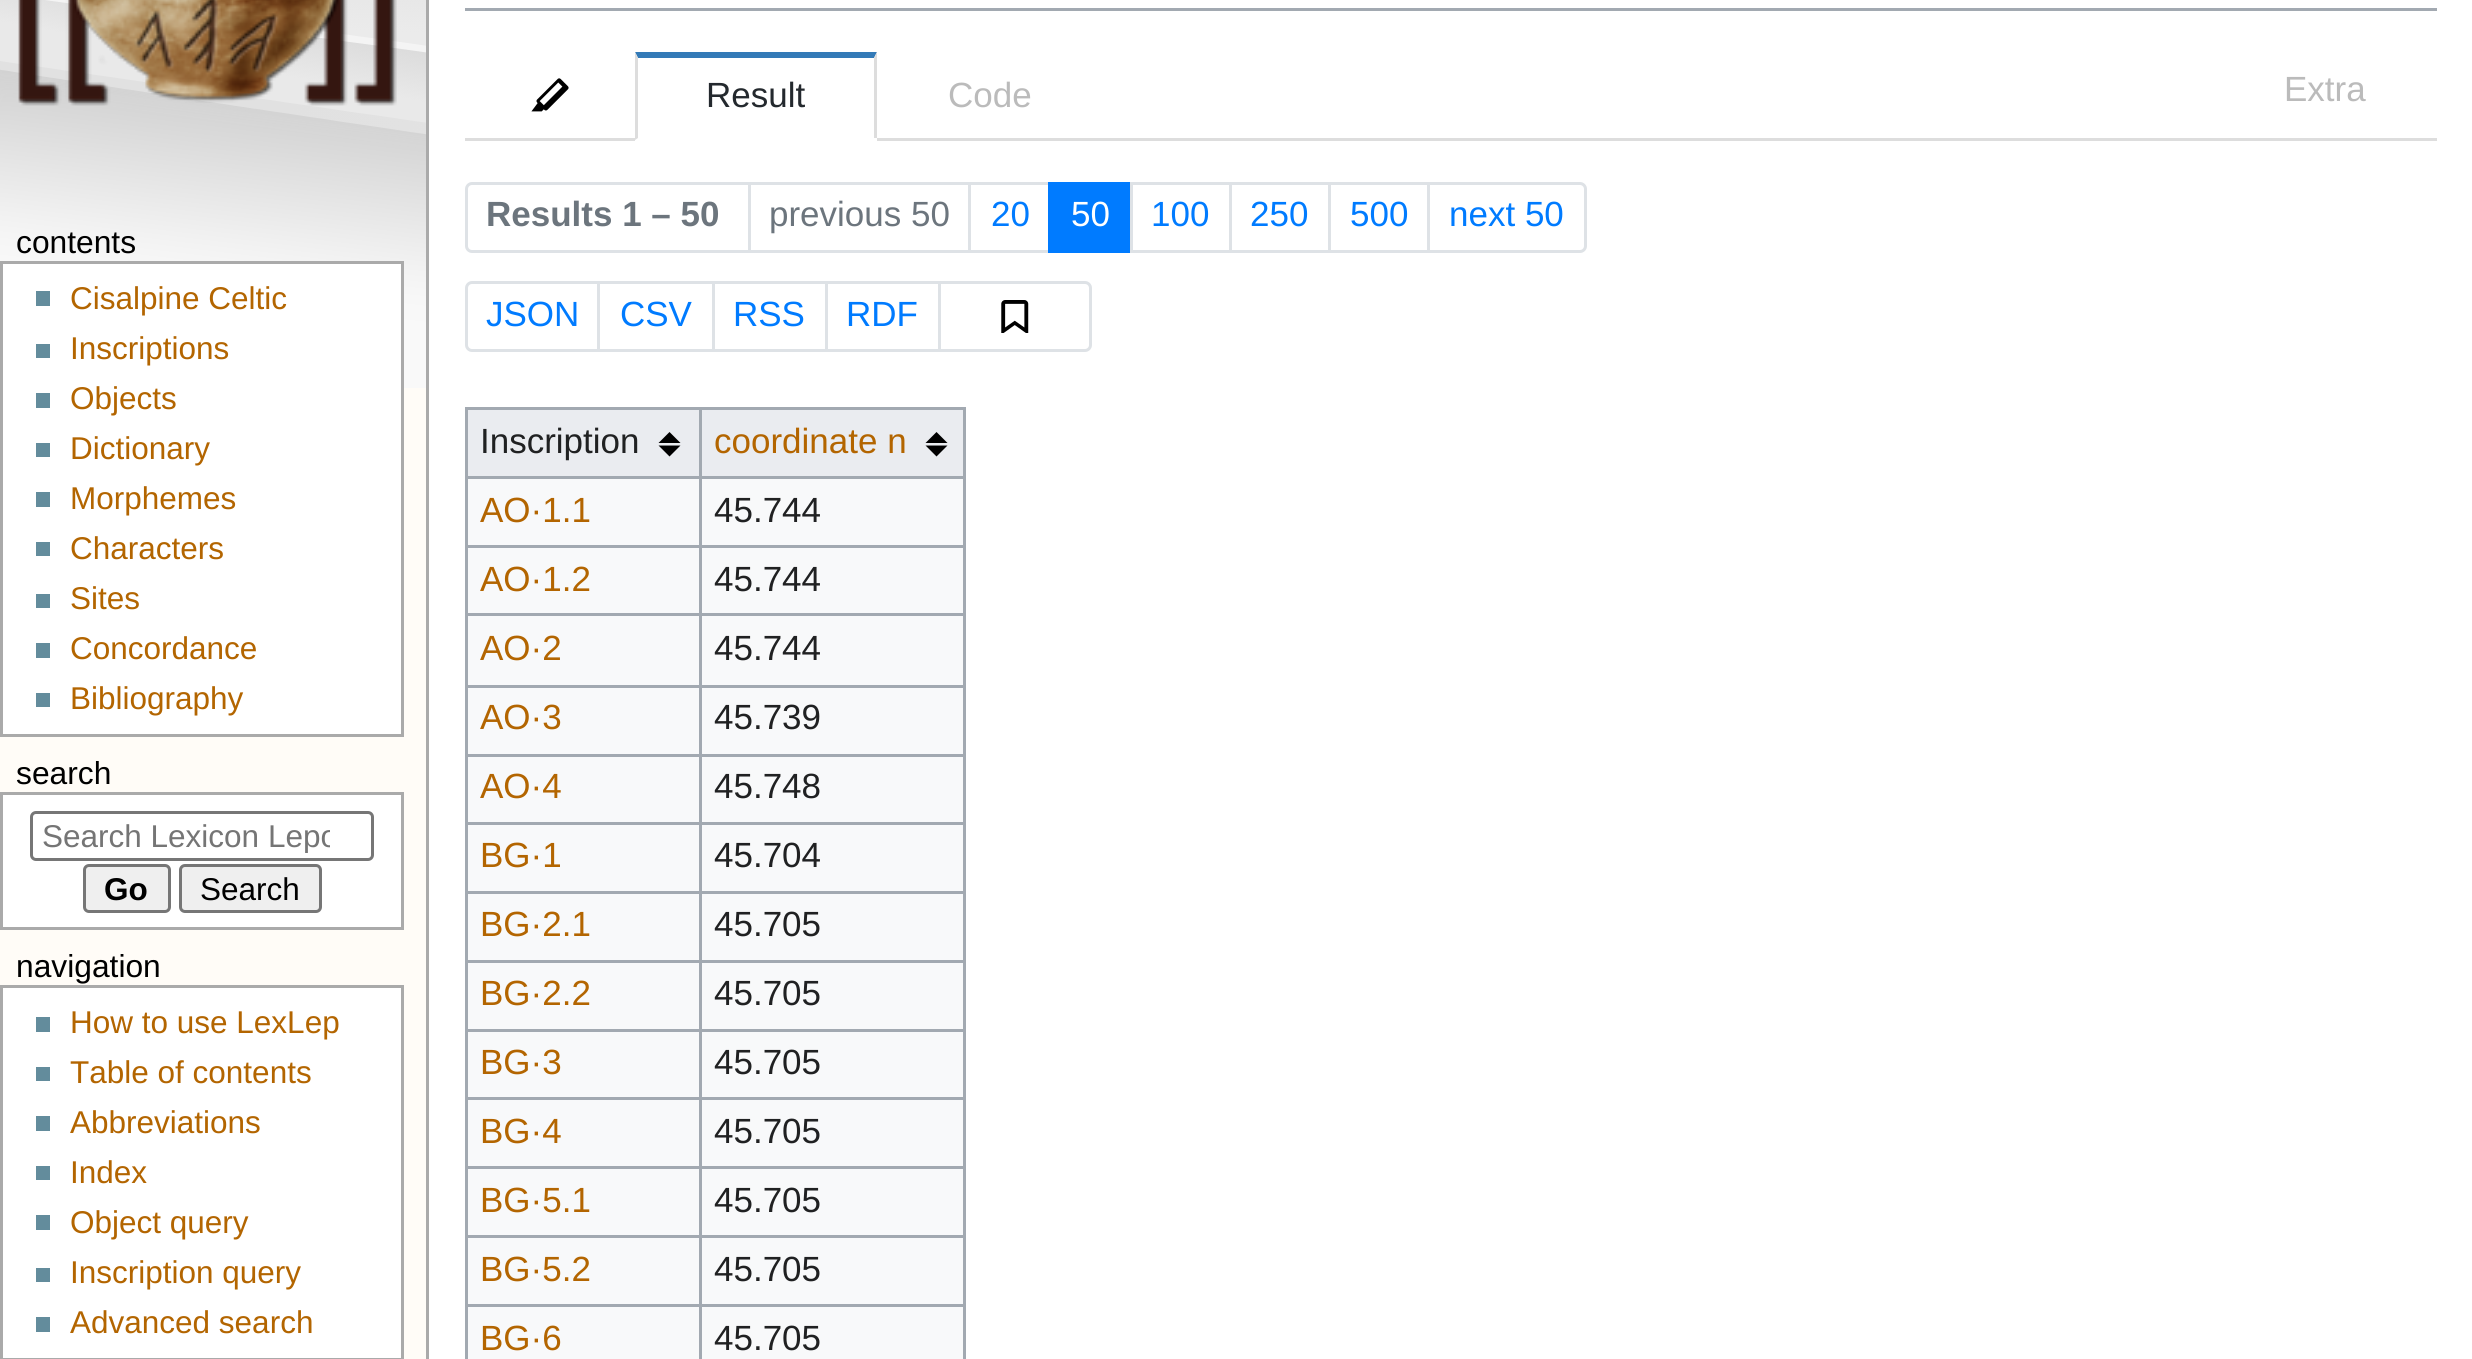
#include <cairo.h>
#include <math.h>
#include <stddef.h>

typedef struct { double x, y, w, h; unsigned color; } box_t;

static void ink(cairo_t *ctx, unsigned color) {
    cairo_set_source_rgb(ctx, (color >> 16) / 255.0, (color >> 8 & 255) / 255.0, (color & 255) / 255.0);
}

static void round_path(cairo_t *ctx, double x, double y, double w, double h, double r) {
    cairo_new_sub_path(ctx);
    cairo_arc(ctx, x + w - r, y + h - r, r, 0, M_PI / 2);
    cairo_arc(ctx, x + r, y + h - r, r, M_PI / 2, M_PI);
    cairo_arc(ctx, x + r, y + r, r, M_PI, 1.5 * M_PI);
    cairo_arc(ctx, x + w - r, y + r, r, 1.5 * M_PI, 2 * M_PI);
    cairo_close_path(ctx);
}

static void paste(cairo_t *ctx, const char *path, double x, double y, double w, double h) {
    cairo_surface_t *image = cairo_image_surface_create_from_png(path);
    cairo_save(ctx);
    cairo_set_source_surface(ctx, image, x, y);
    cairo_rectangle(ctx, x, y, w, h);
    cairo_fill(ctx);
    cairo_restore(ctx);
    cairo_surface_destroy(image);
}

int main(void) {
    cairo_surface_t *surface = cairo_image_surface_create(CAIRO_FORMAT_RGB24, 2472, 1359);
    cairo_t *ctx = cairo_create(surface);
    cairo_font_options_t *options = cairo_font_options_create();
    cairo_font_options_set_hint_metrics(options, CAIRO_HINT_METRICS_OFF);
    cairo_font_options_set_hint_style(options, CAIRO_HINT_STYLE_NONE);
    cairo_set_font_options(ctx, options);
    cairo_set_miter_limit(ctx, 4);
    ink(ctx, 0xFFFCF7);
    cairo_paint(ctx);
    paste(ctx, "media/1.png", 0, 0, 426, 388);
    paste(ctx, "media/2.png", 18, 0, 379, 106);
    cairo_select_font_face(ctx, "Liberation Sans", CAIRO_FONT_SLANT_NORMAL, CAIRO_FONT_WEIGHT_NORMAL);
    cairo_set_font_size(ctx, 31.75);
    ink(ctx, 0x000000);
    cairo_move_to(ctx, 16, 253);
    cairo_show_text(ctx, "contents");
    ink(ctx, 0xFFFFFF);
    cairo_rectangle(ctx, 1.5, 262.5, 401, 473);
    cairo_fill_preserve(ctx);
    ink(ctx, 0xAAAAAA);
    cairo_set_line_width(ctx, 3);
    cairo_stroke(ctx);
    ink(ctx, 0x638C9C);
    cairo_rectangle(ctx, 36, 291, 14, 15);
    cairo_fill(ctx);
    cairo_set_font_size(ctx, 31.5);
    ink(ctx, 0xB36500);
    cairo_move_to(ctx, 70, 309);
    cairo_show_text(ctx, "Cisalpine Celtic");
    ink(ctx, 0x638C9C);
    cairo_rectangle(ctx, 36, 344, 14, 14);
    cairo_fill(ctx);
    ink(ctx, 0xB36500);
    cairo_move_to(ctx, 70, 359);
    cairo_show_text(ctx, "Inscriptions");
    ink(ctx, 0x638C9C);
    cairo_rectangle(ctx, 36, 393, 14, 15);
    cairo_fill(ctx);
    ink(ctx, 0xB36500);
    cairo_move_to(ctx, 70, 409);
    cairo_show_text(ctx, "Objects");
    ink(ctx, 0x638C9C);
    cairo_rectangle(ctx, 36, 443, 14, 14);
    cairo_fill(ctx);
    ink(ctx, 0xB36500);
    cairo_move_to(ctx, 70, 459);
    cairo_show_text(ctx, "Dictionary");
    ink(ctx, 0x638C9C);
    cairo_rectangle(ctx, 36, 492, 14, 15);
    cairo_fill(ctx);
    ink(ctx, 0xB36500);
    cairo_move_to(ctx, 70, 509);
    cairo_show_text(ctx, "Morphemes");
    ink(ctx, 0x638C9C);
    cairo_rectangle(ctx, 36, 542, 14, 14);
    cairo_fill(ctx);
    ink(ctx, 0xB36500);
    cairo_move_to(ctx, 70, 559);
    cairo_show_text(ctx, "Characters");
    ink(ctx, 0x638C9C);
    cairo_rectangle(ctx, 36, 594, 14, 14);
    cairo_fill(ctx);
    ink(ctx, 0xB36500);
    cairo_move_to(ctx, 70, 609);
    cairo_show_text(ctx, "Sites");
    ink(ctx, 0x638C9C);
    cairo_rectangle(ctx, 36, 643, 14, 15);
    cairo_fill(ctx);
    ink(ctx, 0xB36500);
    cairo_move_to(ctx, 70, 659);
    cairo_show_text(ctx, "Concordance");
    ink(ctx, 0x638C9C);
    cairo_rectangle(ctx, 36, 693, 14, 14);
    cairo_fill(ctx);
    ink(ctx, 0xB36500);
    cairo_move_to(ctx, 70, 709);
    cairo_show_text(ctx, "Bibliography");
    cairo_set_font_size(ctx, 31.75);
    ink(ctx, 0x000000);
    cairo_move_to(ctx, 16, 784);
    cairo_show_text(ctx, "search");
    ink(ctx, 0xFFFFFF);
    cairo_rectangle(ctx, 1.5, 793.5, 401, 135);
    cairo_fill_preserve(ctx);
    ink(ctx, 0xAAAAAA);
    cairo_stroke(ctx);
    round_path(ctx, 31.5, 812.5, 341, 47, 4.5);
    ink(ctx, 0x767676);
    cairo_stroke(ctx);
    cairo_save(ctx);
    cairo_rectangle(ctx, 41, 820, 289, 33);
    cairo_clip(ctx);
    cairo_set_font_size(ctx, 31.5);
    ink(ctx, 0x757575);
    cairo_move_to(ctx, 42, 847);
    cairo_show_text(ctx, "Search Lexicon Lepo");
    cairo_restore(ctx);
    ink(ctx, 0xEFEFEF);
    round_path(ctx, 84.5, 865.5, 85, 46, 4.5);
    cairo_fill_preserve(ctx);
    ink(ctx, 0x767676);
    cairo_stroke(ctx);
    cairo_select_font_face(ctx, "Liberation Sans", CAIRO_FONT_SLANT_NORMAL, CAIRO_FONT_WEIGHT_BOLD);
    cairo_set_font_size(ctx, 31.5);
    ink(ctx, 0x000000);
    cairo_move_to(ctx, 104, 900);
    cairo_show_text(ctx, "Go");
    ink(ctx, 0xEFEFEF);
    round_path(ctx, 180.5, 865.5, 140, 46, 4.5);
    cairo_fill_preserve(ctx);
    ink(ctx, 0x767676);
    cairo_stroke(ctx);
    cairo_select_font_face(ctx, "Liberation Sans", CAIRO_FONT_SLANT_NORMAL, CAIRO_FONT_WEIGHT_NORMAL);
    ink(ctx, 0x000000);
    cairo_move_to(ctx, 200, 900);
    cairo_show_text(ctx, "Search");
    cairo_set_font_size(ctx, 31.75);
    cairo_move_to(ctx, 16, 977);
    cairo_show_text(ctx, "navigation");
    ink(ctx, 0xFFFFFF);
    cairo_rectangle(ctx, 1.5, 986.5, 401, 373);
    cairo_fill_preserve(ctx);
    ink(ctx, 0xAAAAAA);
    cairo_stroke(ctx);
    ink(ctx, 0x638C9C);
    cairo_rectangle(ctx, 36, 1017, 14, 15);
    cairo_fill(ctx);
    cairo_set_font_size(ctx, 31.5);
    ink(ctx, 0xB36500);
    cairo_move_to(ctx, 70, 1033);
    cairo_show_text(ctx, "How to use LexLep");
    ink(ctx, 0x638C9C);
    cairo_rectangle(ctx, 36, 1067, 14, 14);
    cairo_fill(ctx);
    ink(ctx, 0xB36500);
    cairo_move_to(ctx, 70, 1083);
    cairo_show_text(ctx, "Table of contents");
    ink(ctx, 0x638C9C);
    cairo_rectangle(ctx, 36, 1116, 14, 15);
    cairo_fill(ctx);
    ink(ctx, 0xB36500);
    cairo_move_to(ctx, 70, 1133);
    cairo_show_text(ctx, "Abbreviations");
    ink(ctx, 0x638C9C);
    cairo_rectangle(ctx, 36, 1166, 14, 14);
    cairo_fill(ctx);
    ink(ctx, 0xB36500);
    cairo_move_to(ctx, 70, 1183);
    cairo_show_text(ctx, "Index");
    ink(ctx, 0x638C9C);
    cairo_rectangle(ctx, 36, 1215, 14, 15);
    cairo_fill(ctx);
    ink(ctx, 0xB36500);
    cairo_move_to(ctx, 70, 1233);
    cairo_show_text(ctx, "Object query");
    ink(ctx, 0x638C9C);
    cairo_rectangle(ctx, 36, 1268, 14, 14);
    cairo_fill(ctx);
    ink(ctx, 0xB36500);
    cairo_move_to(ctx, 70, 1283);
    cairo_show_text(ctx, "Inscription query");
    ink(ctx, 0x638C9C);
    cairo_rectangle(ctx, 36, 1317, 14, 15);
    cairo_fill(ctx);
    ink(ctx, 0xB36500);
    cairo_move_to(ctx, 70, 1333);
    cairo_show_text(ctx, "Advanced search");
    {
        static const box_t items[] = {
            {429, 0, 2043, 1359, 0xFFFFFF},
            {426, 0, 3, 1359, 0xAAAAAA},
            {465, 8, 1972, 3, 0xA2A9B1},
        };
        for (size_t i = 0; i < sizeof items / sizeof *items; i++) {
            ink(ctx, items[i].color);
            cairo_rectangle(ctx, items[i].x, items[i].y, items[i].w, items[i].h);
            cairo_fill(ctx);
        }
    }
    paste(ctx, "media/3.png", 531, 78, 38, 34);
    ink(ctx, 0x337AB7);
    cairo_new_path(ctx);
    cairo_move_to(ctx, 635, 52);
    cairo_line_to(ctx, 877, 52);
    cairo_line_to(ctx, 874, 58);
    cairo_line_to(ctx, 638, 58);
    cairo_close_path(ctx);
    cairo_fill(ctx);
    ink(ctx, 0xDDDDDD);
    cairo_rectangle(ctx, 465, 138, 1972, 3);
    cairo_fill(ctx);
    cairo_new_path(ctx);
    cairo_move_to(ctx, 877, 52);
    cairo_line_to(ctx, 877, 140);
    cairo_line_to(ctx, 874, 138);
    cairo_line_to(ctx, 874, 58);
    cairo_close_path(ctx);
    cairo_fill(ctx);
    ink(ctx, 0xFFFFFF);
    cairo_rectangle(ctx, 635, 138, 242, 3);
    cairo_fill(ctx);
    ink(ctx, 0xDDDDDD);
    cairo_new_path(ctx);
    cairo_move_to(ctx, 635, 140);
    cairo_line_to(ctx, 635, 52);
    cairo_line_to(ctx, 638, 58);
    cairo_line_to(ctx, 638, 138);
    cairo_close_path(ctx);
    cairo_fill(ctx);
    cairo_set_font_size(ctx, 35);
    ink(ctx, 0x24292E);
    cairo_move_to(ctx, 706, 107);
    cairo_show_text(ctx, "Result");
    ink(ctx, 0xBBBBBB);
    cairo_move_to(ctx, 948, 107);
    cairo_show_text(ctx, "Code");
    cairo_move_to(ctx, 2284, 101);
    cairo_show_text(ctx, "Extra");
    cairo_new_path(ctx);
    cairo_move_to(ctx, 472, 183.5);
    cairo_line_to(ctx, 749.5, 183.5);
    cairo_line_to(ctx, 749.5, 251.5);
    cairo_line_to(ctx, 472, 251.5);
    cairo_curve_to(ctx, 469, 251.5, 466.5, 249, 466.5, 246);
    cairo_line_to(ctx, 466.5, 189);
    cairo_curve_to(ctx, 466.5, 186, 469, 183.5, 472, 183.5);
    cairo_close_path(ctx);
    ink(ctx, 0xDEE2E6);
    cairo_stroke(ctx);
    cairo_select_font_face(ctx, "Liberation Sans", CAIRO_FONT_SLANT_NORMAL, CAIRO_FONT_WEIGHT_BOLD);
    ink(ctx, 0x6C757D);
    cairo_move_to(ctx, 486, 226);
    cairo_show_text(ctx, "Results 1 – 50");
    cairo_rectangle(ctx, 749.5, 183.5, 220, 68);
    ink(ctx, 0xDEE2E6);
    cairo_stroke(ctx);
    cairo_select_font_face(ctx, "Liberation Sans", CAIRO_FONT_SLANT_NORMAL, CAIRO_FONT_WEIGHT_NORMAL);
    ink(ctx, 0x6C757D);
    cairo_move_to(ctx, 769, 226);
    cairo_show_text(ctx, "previous 50");
    cairo_rectangle(ctx, 969.5, 183.5, 80, 68);
    ink(ctx, 0xDEE2E6);
    cairo_stroke(ctx);
    ink(ctx, 0x007BFF);
    cairo_move_to(ctx, 991, 226);
    cairo_show_text(ctx, "20");
    cairo_rectangle(ctx, 1048, 182, 82, 71);
    cairo_fill(ctx);
    ink(ctx, 0xFFFFFF);
    cairo_move_to(ctx, 1071, 226);
    cairo_show_text(ctx, "50");
    cairo_rectangle(ctx, 1131.5, 183.5, 99, 68);
    ink(ctx, 0xDEE2E6);
    cairo_stroke(ctx);
    ink(ctx, 0x007BFF);
    cairo_move_to(ctx, 1151, 226);
    cairo_show_text(ctx, "100");
    cairo_rectangle(ctx, 1230.5, 183.5, 99, 68);
    ink(ctx, 0xDEE2E6);
    cairo_stroke(ctx);
    ink(ctx, 0x007BFF);
    cairo_move_to(ctx, 1250, 226);
    cairo_show_text(ctx, "250");
    cairo_rectangle(ctx, 1329.5, 183.5, 99, 68);
    ink(ctx, 0xDEE2E6);
    cairo_stroke(ctx);
    ink(ctx, 0x007BFF);
    cairo_move_to(ctx, 1350, 226);
    cairo_show_text(ctx, "500");
    ink(ctx, 0xFFFFFF);
    cairo_new_path(ctx);
    cairo_move_to(ctx, 1428.5, 183.5);
    cairo_line_to(ctx, 1580, 183.5);
    cairo_curve_to(ctx, 1583, 183.5, 1585.5, 186, 1585.5, 189);
    cairo_line_to(ctx, 1585.5, 246);
    cairo_curve_to(ctx, 1585.5, 249, 1583, 251.5, 1580, 251.5);
    cairo_line_to(ctx, 1428.5, 251.5);
    cairo_close_path(ctx);
    cairo_fill_preserve(ctx);
    ink(ctx, 0xDEE2E6);
    cairo_stroke(ctx);
    ink(ctx, 0x007BFF);
    cairo_move_to(ctx, 1449, 226);
    cairo_show_text(ctx, "next 50");
    cairo_new_path(ctx);
    cairo_move_to(ctx, 472, 282.5);
    cairo_line_to(ctx, 598.5, 282.5);
    cairo_line_to(ctx, 598.5, 350.5);
    cairo_line_to(ctx, 472, 350.5);
    cairo_curve_to(ctx, 469, 350.5, 466.5, 348, 466.5, 345);
    cairo_line_to(ctx, 466.5, 288);
    cairo_curve_to(ctx, 466.5, 285, 469, 282.5, 472, 282.5);
    cairo_close_path(ctx);
    ink(ctx, 0xDEE2E6);
    cairo_stroke(ctx);
    ink(ctx, 0x007BFF);
    cairo_move_to(ctx, 486, 326);
    cairo_show_text(ctx, "JSON");
    cairo_rectangle(ctx, 598.5, 282.5, 115, 68);
    ink(ctx, 0xDEE2E6);
    cairo_stroke(ctx);
    ink(ctx, 0x007BFF);
    cairo_move_to(ctx, 620, 326);
    cairo_show_text(ctx, "CSV");
    cairo_rectangle(ctx, 713.5, 282.5, 113, 68);
    ink(ctx, 0xDEE2E6);
    cairo_stroke(ctx);
    ink(ctx, 0x007BFF);
    cairo_move_to(ctx, 733, 326);
    cairo_show_text(ctx, "RSS");
    cairo_rectangle(ctx, 826.5, 282.5, 113, 68);
    ink(ctx, 0xDEE2E6);
    cairo_stroke(ctx);
    ink(ctx, 0x007BFF);
    cairo_move_to(ctx, 846, 326);
    cairo_show_text(ctx, "RDF");
    ink(ctx, 0xFFFFFF);
    cairo_new_path(ctx);
    cairo_move_to(ctx, 939.5, 282.5);
    cairo_line_to(ctx, 1085, 282.5);
    cairo_curve_to(ctx, 1088, 282.5, 1090.5, 285, 1090.5, 288);
    cairo_line_to(ctx, 1090.5, 345);
    cairo_curve_to(ctx, 1090.5, 348, 1088, 350.5, 1085, 350.5);
    cairo_line_to(ctx, 939.5, 350.5);
    cairo_close_path(ctx);
    cairo_fill_preserve(ctx);
    ink(ctx, 0xDEE2E6);
    cairo_stroke(ctx);
    paste(ctx, "media/4.png", 1001, 300, 28, 33);
    {
        static const box_t items[] = {
            {468, 479, 495, 880, 0xF8F9FA},
            {465, 407, 500, 3, 0xA2A9B1},
            {963, 407, 3, 952, 0xA2A9B1},
            {465, 407, 3, 952, 0xA2A9B1},
            {468, 410, 231, 66, 0xEAECF0},
        };
        for (size_t i = 0; i < sizeof items / sizeof *items; i++) {
            ink(ctx, items[i].color);
            cairo_rectangle(ctx, items[i].x, items[i].y, items[i].w, items[i].h);
            cairo_fill(ctx);
        }
    }
    ink(ctx, 0x000000);
    cairo_new_path(ctx);
    cairo_move_to(ctx, 680.5, 445.5);
    cairo_line_to(ctx, 669.5, 456.5);
    cairo_line_to(ctx, 658.5, 445.5);
    cairo_close_path(ctx);
    cairo_move_to(ctx, 680.5, 443);
    cairo_line_to(ctx, 669.5, 432);
    cairo_line_to(ctx, 658.5, 443);
    cairo_close_path(ctx);
    cairo_fill(ctx);
    ink(ctx, 0x202122);
    cairo_move_to(ctx, 480, 453);
    cairo_show_text(ctx, "Inscription");
    ink(ctx, 0xEAECF0);
    cairo_rectangle(ctx, 702, 410, 261, 66);
    cairo_fill(ctx);
    ink(ctx, 0x000000);
    cairo_new_path(ctx);
    cairo_move_to(ctx, 947.5, 445.5);
    cairo_line_to(ctx, 936.5, 456.5);
    cairo_line_to(ctx, 925.5, 445.5);
    cairo_close_path(ctx);
    cairo_move_to(ctx, 947.5, 443);
    cairo_line_to(ctx, 936.5, 432);
    cairo_line_to(ctx, 925.5, 443);
    cairo_close_path(ctx);
    cairo_fill(ctx);
    {
        static const box_t items[] = {
            {699, 476, 266, 3, 0xA2A9B1},
            {699, 545, 266, 3, 0xA2A9B1},
            {699, 613, 266, 3, 0xA2A9B1},
            {699, 685, 266, 3, 0xA2A9B1},
            {699, 754, 266, 3, 0xA2A9B1},
            {699, 822, 266, 3, 0xA2A9B1},
            {699, 891, 266, 3, 0xA2A9B1},
            {699, 960, 266, 3, 0xA2A9B1},
            {699, 1029, 266, 3, 0xA2A9B1},
            {699, 1097, 266, 3, 0xA2A9B1},
            {699, 1166, 266, 3, 0xA2A9B1},
            {699, 1235, 266, 3, 0xA2A9B1},
            {699, 1304, 266, 3, 0xA2A9B1},
            {699, 1304, 3, 55, 0xA2A9B1},
            {465, 1304, 236, 3, 0xA2A9B1},
            {699, 1235, 3, 71, 0xA2A9B1},
            {465, 1235, 236, 3, 0xA2A9B1},
            {699, 1166, 3, 72, 0xA2A9B1},
            {465, 1166, 236, 3, 0xA2A9B1},
            {699, 1097, 3, 72, 0xA2A9B1},
            {465, 1097, 236, 3, 0xA2A9B1},
            {699, 1029, 3, 71, 0xA2A9B1},
            {465, 1029, 236, 3, 0xA2A9B1},
            {699, 960, 3, 71, 0xA2A9B1},
            {465, 960, 236, 3, 0xA2A9B1},
            {699, 891, 3, 72, 0xA2A9B1},
            {465, 891, 236, 3, 0xA2A9B1},
            {699, 822, 3, 72, 0xA2A9B1},
            {465, 822, 236, 3, 0xA2A9B1},
            {699, 754, 3, 71, 0xA2A9B1},
            {465, 754, 236, 3, 0xA2A9B1},
            {699, 685, 3, 71, 0xA2A9B1},
            {465, 685, 236, 3, 0xA2A9B1},
            {699, 613, 3, 75, 0xA2A9B1},
            {465, 613, 236, 3, 0xA2A9B1},
            {699, 545, 3, 71, 0xA2A9B1},
            {465, 545, 236, 3, 0xA2A9B1},
            {699, 476, 3, 71, 0xA2A9B1},
            {465, 476, 236, 3, 0xA2A9B1},
            {699, 407, 3, 72, 0xA2A9B1},
        };
        for (size_t i = 0; i < sizeof items / sizeof *items; i++) {
            ink(ctx, items[i].color);
            cairo_rectangle(ctx, items[i].x, items[i].y, items[i].w, items[i].h);
            cairo_fill(ctx);
        }
    }
    ink(ctx, 0xB36500);
    cairo_move_to(ctx, 714, 453);
    cairo_show_text(ctx, "coordinate n");
    cairo_move_to(ctx, 480, 522);
    cairo_show_text(ctx, "AO·1.1");
    ink(ctx, 0x202122);
    cairo_move_to(ctx, 714, 522);
    cairo_show_text(ctx, "45.744");
    ink(ctx, 0xB36500);
    cairo_move_to(ctx, 480, 591);
    cairo_show_text(ctx, "AO·1.2");
    ink(ctx, 0x202122);
    cairo_move_to(ctx, 714, 591);
    cairo_show_text(ctx, "45.744");
    ink(ctx, 0xB36500);
    cairo_move_to(ctx, 480, 660);
    cairo_show_text(ctx, "AO·2");
    ink(ctx, 0x202122);
    cairo_move_to(ctx, 714, 660);
    cairo_show_text(ctx, "45.744");
    ink(ctx, 0xB36500);
    cairo_move_to(ctx, 480, 729);
    cairo_show_text(ctx, "AO·3");
    ink(ctx, 0x202122);
    cairo_move_to(ctx, 714, 729);
    cairo_show_text(ctx, "45.739");
    ink(ctx, 0xB36500);
    cairo_move_to(ctx, 480, 798);
    cairo_show_text(ctx, "AO·4");
    ink(ctx, 0x202122);
    cairo_move_to(ctx, 714, 798);
    cairo_show_text(ctx, "45.748");
    ink(ctx, 0xB36500);
    cairo_move_to(ctx, 480, 867);
    cairo_show_text(ctx, "BG·1");
    ink(ctx, 0x202122);
    cairo_move_to(ctx, 714, 867);
    cairo_show_text(ctx, "45.704");
    ink(ctx, 0xB36500);
    cairo_move_to(ctx, 480, 936);
    cairo_show_text(ctx, "BG·2.1");
    ink(ctx, 0x202122);
    cairo_move_to(ctx, 714, 936);
    cairo_show_text(ctx, "45.705");
    ink(ctx, 0xB36500);
    cairo_move_to(ctx, 480, 1005);
    cairo_show_text(ctx, "BG·2.2");
    ink(ctx, 0x202122);
    cairo_move_to(ctx, 714, 1005);
    cairo_show_text(ctx, "45.705");
    ink(ctx, 0xB36500);
    cairo_move_to(ctx, 480, 1074);
    cairo_show_text(ctx, "BG·3");
    ink(ctx, 0x202122);
    cairo_move_to(ctx, 714, 1074);
    cairo_show_text(ctx, "45.705");
    ink(ctx, 0xB36500);
    cairo_move_to(ctx, 480, 1143);
    cairo_show_text(ctx, "BG·4");
    ink(ctx, 0x202122);
    cairo_move_to(ctx, 714, 1143);
    cairo_show_text(ctx, "45.705");
    ink(ctx, 0xB36500);
    cairo_move_to(ctx, 480, 1212);
    cairo_show_text(ctx, "BG·5.1");
    ink(ctx, 0x202122);
    cairo_move_to(ctx, 714, 1212);
    cairo_show_text(ctx, "45.705");
    ink(ctx, 0xB36500);
    cairo_move_to(ctx, 480, 1281);
    cairo_show_text(ctx, "BG·5.2");
    ink(ctx, 0x202122);
    cairo_move_to(ctx, 714, 1281);
    cairo_show_text(ctx, "45.705");
    ink(ctx, 0xB36500);
    cairo_move_to(ctx, 480, 1350);
    cairo_show_text(ctx, "BG·6");
    ink(ctx, 0x202122);
    cairo_move_to(ctx, 714, 1350);
    cairo_show_text(ctx, "45.705");
    cairo_surface_write_to_png(surface, "image.png");
    cairo_font_options_destroy(options);
    cairo_destroy(ctx);
    cairo_surface_destroy(surface);
    return 0;
}
